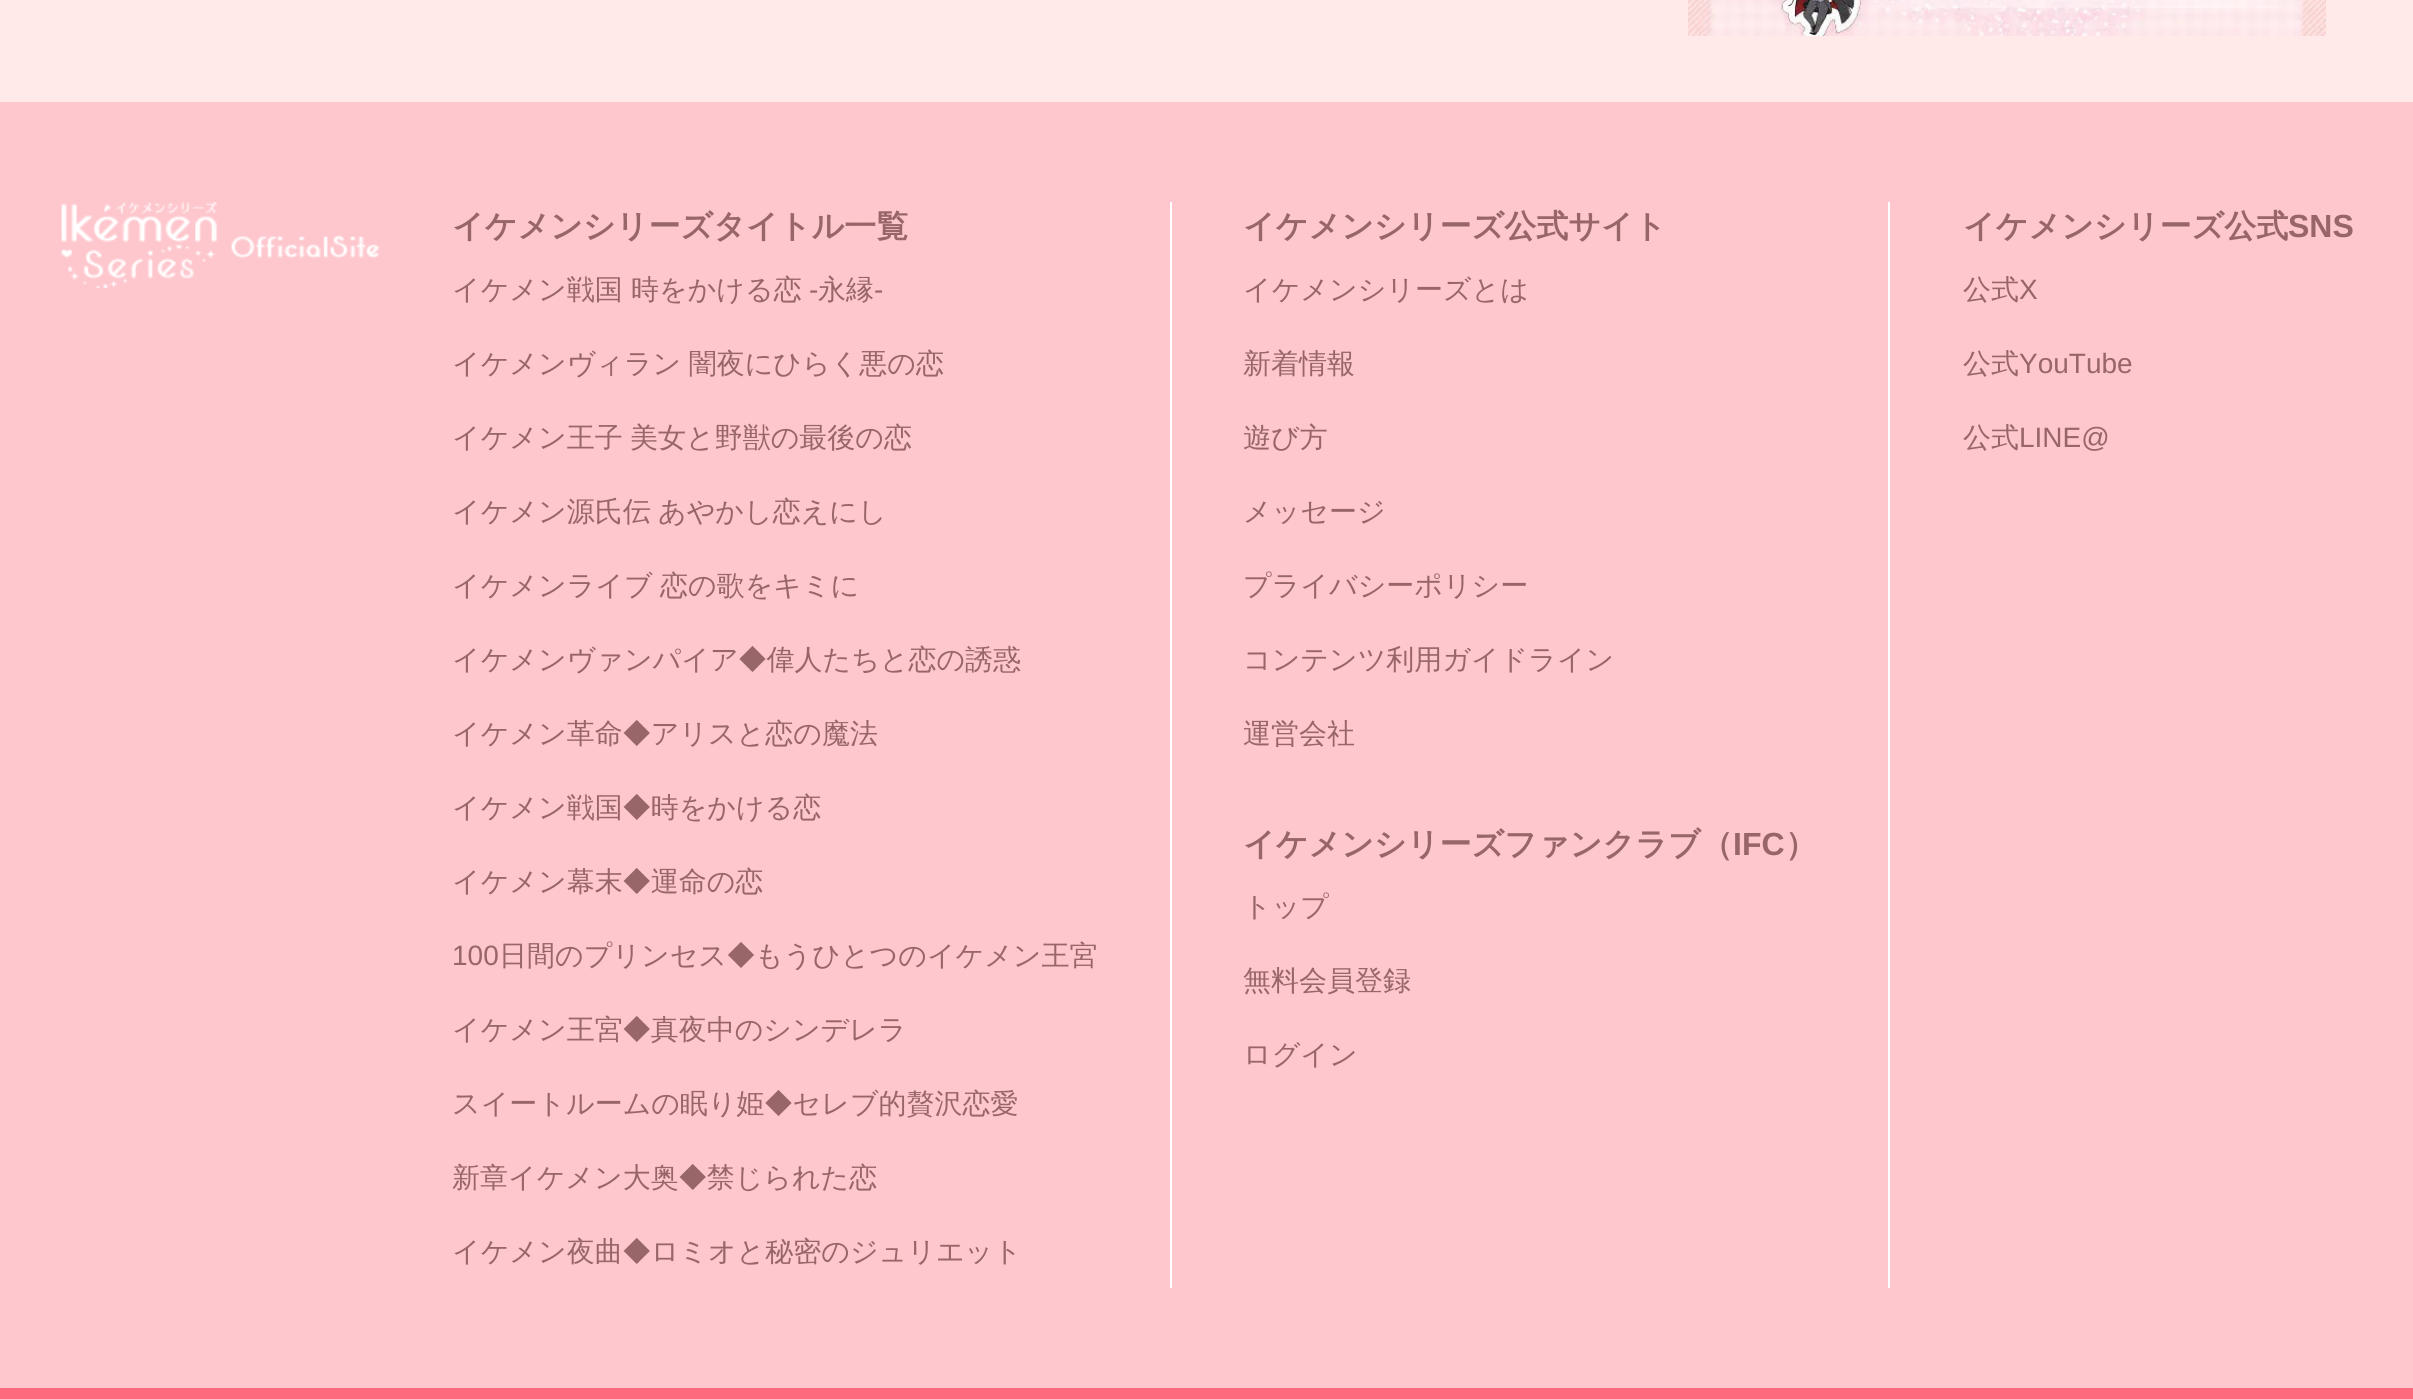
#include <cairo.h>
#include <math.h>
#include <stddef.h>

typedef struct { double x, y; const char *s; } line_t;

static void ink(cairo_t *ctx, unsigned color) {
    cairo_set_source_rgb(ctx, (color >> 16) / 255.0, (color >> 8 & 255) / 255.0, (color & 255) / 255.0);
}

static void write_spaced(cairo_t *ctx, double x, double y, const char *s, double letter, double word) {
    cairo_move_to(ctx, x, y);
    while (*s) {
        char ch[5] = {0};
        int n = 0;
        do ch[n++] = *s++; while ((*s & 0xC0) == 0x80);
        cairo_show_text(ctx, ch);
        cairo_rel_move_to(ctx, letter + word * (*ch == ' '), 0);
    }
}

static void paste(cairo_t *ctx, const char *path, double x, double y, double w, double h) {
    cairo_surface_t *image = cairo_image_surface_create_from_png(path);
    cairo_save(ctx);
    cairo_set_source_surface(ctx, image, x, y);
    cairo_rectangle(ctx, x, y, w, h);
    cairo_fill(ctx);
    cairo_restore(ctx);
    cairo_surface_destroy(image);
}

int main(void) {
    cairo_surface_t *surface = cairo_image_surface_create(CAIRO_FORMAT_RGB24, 2413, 1399);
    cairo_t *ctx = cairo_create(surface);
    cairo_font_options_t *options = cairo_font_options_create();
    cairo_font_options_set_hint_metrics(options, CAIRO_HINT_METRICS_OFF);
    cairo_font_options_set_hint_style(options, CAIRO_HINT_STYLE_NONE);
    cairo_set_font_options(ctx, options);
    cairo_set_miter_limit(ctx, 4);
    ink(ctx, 0xFFE9E9);
    cairo_paint(ctx);
    paste(ctx, "media/1.png", 1688, 0, 638, 36);
    ink(ctx, 0xFEC6CD);
    cairo_rectangle(ctx, 0, 102, 2413, 1286);
    cairo_fill(ctx);
    paste(ctx, "media/2.png", 61, 202, 319, 86);
    ink(ctx, 0xFFFFFF);
    cairo_rectangle(ctx, 1170, 202, 2, 1086);
    cairo_fill(ctx);
    cairo_select_font_face(ctx, "WenQuanYi Zen Hei", CAIRO_FONT_SLANT_NORMAL, CAIRO_FONT_WEIGHT_BOLD);
    cairo_set_font_size(ctx, 32);
    ink(ctx, 0x986668);
    cairo_move_to(ctx, 452, 237);
    cairo_show_text(ctx, "イケメンシリーズタイトル一覧");
    cairo_select_font_face(ctx, "WenQuanYi Zen Hei Medium", CAIRO_FONT_SLANT_NORMAL, CAIRO_FONT_WEIGHT_NORMAL);
    cairo_set_font_size(ctx, 28);
    cairo_move_to(ctx, 452, 299);
    cairo_show_text(ctx, "イケメン戦国 時をかける恋");
    cairo_select_font_face(ctx, "Liberation Sans", CAIRO_FONT_SLANT_NORMAL, CAIRO_FONT_WEIGHT_NORMAL);
    cairo_move_to(ctx, 809, 299);
    cairo_show_text(ctx, "-");
    cairo_select_font_face(ctx, "WenQuanYi Zen Hei Medium", CAIRO_FONT_SLANT_NORMAL, CAIRO_FONT_WEIGHT_NORMAL);
    cairo_move_to(ctx, 818, 299);
    cairo_show_text(ctx, "永縁");
    cairo_select_font_face(ctx, "Liberation Sans", CAIRO_FONT_SLANT_NORMAL, CAIRO_FONT_WEIGHT_NORMAL);
    cairo_move_to(ctx, 874, 299);
    cairo_show_text(ctx, "-");
    cairo_select_font_face(ctx, "WenQuanYi Zen Hei Medium", CAIRO_FONT_SLANT_NORMAL, CAIRO_FONT_WEIGHT_NORMAL);
    {
        static const line_t items[] = {
            {452, 373, "イケメンヴィラン 闇夜にひらく悪の恋"},
            {452, 447, "イケメン王子 美女と野獣の最後の恋"},
            {452, 521, "イケメン源氏伝 あやかし恋えにし"},
            {452, 595, "イケメンライブ 恋の歌をキミに"},
        };
        for (size_t i = 0; i < sizeof items / sizeof *items; i++) {
            write_spaced(ctx, items[i].x, items[i].y, items[i].s, 0, -1);
        }
    }
    {
        static const line_t items[] = {
            {452, 669, "イケメンヴァンパイア◆偉人たちと恋の誘惑"},
            {452, 743, "イケメン革命◆アリスと恋の魔法"},
            {452, 817, "イケメン戦国◆時をかける恋"},
            {452, 891, "イケメン幕末◆運命の恋"},
        };
        for (size_t i = 0; i < sizeof items / sizeof *items; i++) {
            cairo_move_to(ctx, items[i].x, items[i].y);
            cairo_show_text(ctx, items[i].s);
        }
    }
    cairo_select_font_face(ctx, "Liberation Sans", CAIRO_FONT_SLANT_NORMAL, CAIRO_FONT_WEIGHT_NORMAL);
    cairo_move_to(ctx, 452, 965);
    cairo_show_text(ctx, "100");
    cairo_select_font_face(ctx, "WenQuanYi Zen Hei Medium", CAIRO_FONT_SLANT_NORMAL, CAIRO_FONT_WEIGHT_NORMAL);
    {
        static const line_t items[] = {
            {499, 965, "日間のプリンセス◆もうひとつのイケメン王宮"},
            {452, 1039, "イケメン王宮◆真夜中のシンデレラ"},
            {452, 1113, "スイートルームの眠り姫◆セレブ的贅沢恋愛"},
            {452, 1187, "新章イケメン大奥◆禁じられた恋"},
            {452, 1261, "イケメン夜曲◆ロミオと秘密のジュリエット"},
        };
        for (size_t i = 0; i < sizeof items / sizeof *items; i++) {
            cairo_move_to(ctx, items[i].x, items[i].y);
            cairo_show_text(ctx, items[i].s);
        }
    }
    ink(ctx, 0xFFFFFF);
    cairo_rectangle(ctx, 1888, 202, 2, 1086);
    cairo_fill(ctx);
    cairo_select_font_face(ctx, "WenQuanYi Zen Hei", CAIRO_FONT_SLANT_NORMAL, CAIRO_FONT_WEIGHT_BOLD);
    cairo_set_font_size(ctx, 32);
    ink(ctx, 0x986668);
    cairo_move_to(ctx, 1243, 237);
    cairo_show_text(ctx, "イケメンシリーズ公式サイト");
    cairo_select_font_face(ctx, "WenQuanYi Zen Hei Medium", CAIRO_FONT_SLANT_NORMAL, CAIRO_FONT_WEIGHT_NORMAL);
    cairo_set_font_size(ctx, 28);
    {
        static const line_t items[] = {
            {1243, 299, "イケメンシリーズとは"},
            {1243, 373, "新着情報"},
            {1243, 447, "遊び方"},
            {1243, 521, "メッセージ"},
            {1243, 595, "プライバシーポリシー"},
            {1243, 669, "コンテンツ利用ガイドライン"},
            {1243, 743, "運営会社"},
        };
        for (size_t i = 0; i < sizeof items / sizeof *items; i++) {
            cairo_move_to(ctx, items[i].x, items[i].y);
            cairo_show_text(ctx, items[i].s);
        }
    }
    cairo_select_font_face(ctx, "WenQuanYi Zen Hei", CAIRO_FONT_SLANT_NORMAL, CAIRO_FONT_WEIGHT_BOLD);
    cairo_set_font_size(ctx, 32);
    cairo_move_to(ctx, 1243, 855);
    cairo_show_text(ctx, "イケメンシリーズファンクラブ（");
    cairo_select_font_face(ctx, "Liberation Sans", CAIRO_FONT_SLANT_NORMAL, CAIRO_FONT_WEIGHT_BOLD);
    cairo_move_to(ctx, 1733, 855);
    cairo_show_text(ctx, "IFC");
    cairo_select_font_face(ctx, "WenQuanYi Zen Hei", CAIRO_FONT_SLANT_NORMAL, CAIRO_FONT_WEIGHT_BOLD);
    cairo_move_to(ctx, 1785, 855);
    cairo_show_text(ctx, "）");
    cairo_select_font_face(ctx, "WenQuanYi Zen Hei Medium", CAIRO_FONT_SLANT_NORMAL, CAIRO_FONT_WEIGHT_NORMAL);
    cairo_set_font_size(ctx, 28);
    {
        static const line_t items[] = {
            {1243, 916, "トップ"},
            {1243, 990, "無料会員登録"},
            {1243, 1064, "ログイン"},
        };
        for (size_t i = 0; i < sizeof items / sizeof *items; i++) {
            cairo_move_to(ctx, items[i].x, items[i].y);
            cairo_show_text(ctx, items[i].s);
        }
    }
    cairo_select_font_face(ctx, "WenQuanYi Zen Hei", CAIRO_FONT_SLANT_NORMAL, CAIRO_FONT_WEIGHT_BOLD);
    cairo_set_font_size(ctx, 32);
    cairo_move_to(ctx, 1963, 237);
    cairo_show_text(ctx, "イケメンシリーズ公式");
    cairo_select_font_face(ctx, "Liberation Sans", CAIRO_FONT_SLANT_NORMAL, CAIRO_FONT_WEIGHT_BOLD);
    cairo_move_to(ctx, 2288, 237);
    cairo_show_text(ctx, "SNS");
    cairo_select_font_face(ctx, "WenQuanYi Zen Hei Medium", CAIRO_FONT_SLANT_NORMAL, CAIRO_FONT_WEIGHT_NORMAL);
    cairo_set_font_size(ctx, 28);
    cairo_move_to(ctx, 1963, 299);
    cairo_show_text(ctx, "公式");
    cairo_select_font_face(ctx, "Liberation Sans", CAIRO_FONT_SLANT_NORMAL, CAIRO_FONT_WEIGHT_NORMAL);
    cairo_move_to(ctx, 2019, 299);
    cairo_show_text(ctx, "X");
    cairo_select_font_face(ctx, "WenQuanYi Zen Hei Medium", CAIRO_FONT_SLANT_NORMAL, CAIRO_FONT_WEIGHT_NORMAL);
    cairo_move_to(ctx, 1963, 373);
    cairo_show_text(ctx, "公式");
    cairo_select_font_face(ctx, "Liberation Sans", CAIRO_FONT_SLANT_NORMAL, CAIRO_FONT_WEIGHT_NORMAL);
    cairo_move_to(ctx, 2019, 373);
    cairo_show_text(ctx, "YouTube");
    cairo_select_font_face(ctx, "WenQuanYi Zen Hei Medium", CAIRO_FONT_SLANT_NORMAL, CAIRO_FONT_WEIGHT_NORMAL);
    cairo_move_to(ctx, 1963, 447);
    cairo_show_text(ctx, "公式");
    cairo_select_font_face(ctx, "Liberation Sans", CAIRO_FONT_SLANT_NORMAL, CAIRO_FONT_WEIGHT_NORMAL);
    cairo_move_to(ctx, 2019, 447);
    cairo_show_text(ctx, "LINE@");
    ink(ctx, 0xFD6A7E);
    cairo_rectangle(ctx, 0, 1388, 2413, 11);
    cairo_fill(ctx);
    cairo_surface_write_to_png(surface, "image.png");
    cairo_font_options_destroy(options);
    cairo_destroy(ctx);
    cairo_surface_destroy(surface);
    return 0;
}
